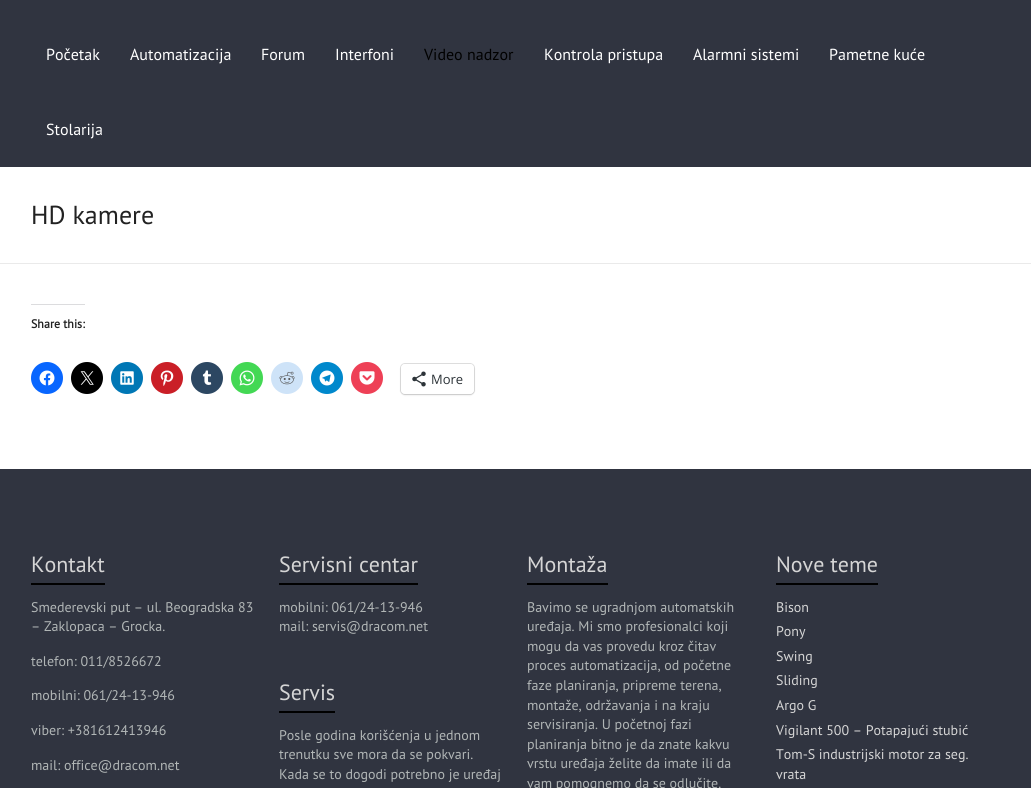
#include <cairo.h>
#include <math.h>
#include <stddef.h>

typedef struct { double x, y; const char *s; } line_t;

static void ink(cairo_t *ctx, unsigned color) {
    cairo_set_source_rgb(ctx, (color >> 16) / 255.0, (color >> 8 & 255) / 255.0, (color & 255) / 255.0);
}

static void round_path(cairo_t *ctx, double x, double y, double w, double h, double r) {
    cairo_new_sub_path(ctx);
    cairo_arc(ctx, x + w - r, y + h - r, r, 0, M_PI / 2);
    cairo_arc(ctx, x + r, y + h - r, r, M_PI / 2, M_PI);
    cairo_arc(ctx, x + r, y + r, r, M_PI, 1.5 * M_PI);
    cairo_arc(ctx, x + w - r, y + r, r, 1.5 * M_PI, 2 * M_PI);
    cairo_close_path(ctx);
}

static void blur_box(cairo_t *ctx, double x, double y, double w, double h, double r, double blur, double alpha) {
    cairo_push_group_with_content(ctx, CAIRO_CONTENT_ALPHA);
    cairo_set_operator(ctx, CAIRO_OPERATOR_SOURCE);
    for (int i = 15; i >= -15 && fmin(w, h) + blur * i / 3 > 0; i -= 2) {
        double e = blur * i / 6;
        cairo_set_source_rgba(ctx, 0, 0, 0, alpha * erfc((i - 1) / 8.5) / 2);
        round_path(ctx, x - e, y - e, w + 2 * e, h + 2 * e, fmax(0, fmin(r + e + blur * .6, fmin(w, h) / 2 + e)));
        cairo_fill(ctx);
    }
    cairo_pattern_t *soft = cairo_pop_group(ctx);
    cairo_mask(ctx, soft);
    cairo_pattern_destroy(soft);
}

static void paste(cairo_t *ctx, const char *path, double x, double y, double w, double h) {
    cairo_surface_t *image = cairo_image_surface_create_from_png(path);
    cairo_save(ctx);
    cairo_set_source_surface(ctx, image, x, y);
    cairo_rectangle(ctx, x, y, w, h);
    cairo_fill(ctx);
    cairo_restore(ctx);
    cairo_surface_destroy(image);
}

int main(void) {
    cairo_surface_t *surface = cairo_image_surface_create(CAIRO_FORMAT_RGB24, 1031, 788);
    cairo_t *ctx = cairo_create(surface);
    cairo_font_options_t *options = cairo_font_options_create();
    cairo_font_options_set_hint_metrics(options, CAIRO_HINT_METRICS_OFF);
    cairo_font_options_set_hint_style(options, CAIRO_HINT_STYLE_NONE);
    cairo_set_font_options(ctx, options);
    cairo_set_miter_limit(ctx, 4);
    ink(ctx, 0xFFFFFF);
    cairo_paint(ctx);
    ink(ctx, 0x303440);
    cairo_rectangle(ctx, 0, 0, 1031, 167);
    cairo_fill(ctx);
    cairo_select_font_face(ctx, "PT Sans", CAIRO_FONT_SLANT_NORMAL, CAIRO_FONT_WEIGHT_NORMAL);
    cairo_set_font_size(ctx, 16);
    ink(ctx, 0xFFFFFF);
    {
        static const line_t items[] = {
            {46, 60, "Početak"},
            {130, 60, "Automatizacija"},
            {261, 60, "Forum"},
            {335, 60, "Interfoni"},
        };
        for (size_t i = 0; i < sizeof items / sizeof *items; i++) {
            cairo_move_to(ctx, items[i].x, items[i].y);
            cairo_show_text(ctx, items[i].s);
        }
    }
    ink(ctx, 0x000000);
    cairo_move_to(ctx, 424, 60);
    cairo_show_text(ctx, "Video nadzor");
    ink(ctx, 0xFFFFFF);
    {
        static const line_t items[] = {
            {544, 60, "Kontrola pristupa"},
            {693, 60, "Alarmni sistemi"},
            {829, 60, "Pametne kuće"},
            {46, 135, "Stolarija"},
        };
        for (size_t i = 0; i < sizeof items / sizeof *items; i++) {
            cairo_move_to(ctx, items[i].x, items[i].y);
            cairo_show_text(ctx, items[i].s);
        }
    }
    ink(ctx, 0xEAEAEA);
    cairo_rectangle(ctx, 0, 263, 1031, 1);
    cairo_fill(ctx);
    cairo_set_font_size(ctx, 26);
    ink(ctx, 0x222222);
    cairo_move_to(ctx, 31, 224);
    cairo_show_text(ctx, "HD kamere");
    ink(ctx, 0xDCDCDE);
    cairo_rectangle(ctx, 31, 304, 54, 1);
    cairo_fill(ctx);
    cairo_select_font_face(ctx, "PT Sans", CAIRO_FONT_SLANT_NORMAL, CAIRO_FONT_WEIGHT_BOLD);
    cairo_set_font_size(ctx, 12);
    ink(ctx, 0x222222);
    cairo_move_to(ctx, 31, 328);
    cairo_show_text(ctx, "Share this:");
    ink(ctx, 0x0866FF);
    cairo_new_path(ctx);
    cairo_arc(ctx, 47, 378, 16, 0, 2 * M_PI);
    cairo_fill(ctx);
    paste(ctx, "media/1.png", 39, 370, 16, 16);
    ink(ctx, 0x000000);
    cairo_arc(ctx, 87, 378, 16, 0, 2 * M_PI);
    cairo_fill(ctx);
    paste(ctx, "media/2.png", 80, 371, 14, 14);
    ink(ctx, 0x0077B5);
    cairo_arc(ctx, 127, 378, 16, 0, 2 * M_PI);
    cairo_fill(ctx);
    paste(ctx, "media/3.png", 120, 371, 14, 14);
    ink(ctx, 0xCA1F27);
    cairo_arc(ctx, 167, 378, 16, 0, 2 * M_PI);
    cairo_fill(ctx);
    paste(ctx, "media/4.png", 160, 370, 14, 16);
    ink(ctx, 0x2C4762);
    cairo_arc(ctx, 207, 378, 16, 0, 2 * M_PI);
    cairo_fill(ctx);
    paste(ctx, "media/5.png", 202, 370, 10, 15);
    ink(ctx, 0x43D854);
    cairo_arc(ctx, 247, 378, 16, 0, 2 * M_PI);
    cairo_fill(ctx);
    paste(ctx, "media/6.png", 239, 370, 16, 16);
    ink(ctx, 0xCEE3F8);
    cairo_arc(ctx, 287, 378, 16, 0, 2 * M_PI);
    cairo_fill(ctx);
    paste(ctx, "media/7.png", 279, 371, 16, 14);
    ink(ctx, 0x0088CC);
    cairo_arc(ctx, 327, 378, 16, 0, 2 * M_PI);
    cairo_fill(ctx);
    paste(ctx, "media/8.png", 319, 370, 16, 16);
    ink(ctx, 0xEE4056);
    cairo_arc(ctx, 367, 378, 16, 0, 2 * M_PI);
    cairo_fill(ctx);
    paste(ctx, "media/9.png", 359, 371, 16, 14);
    round_path(ctx, 400.5, 363.5, 74, 31, 4.5);
    ink(ctx, 0xE0E0E0);
    cairo_set_line_width(ctx, 1);
    cairo_stroke(ctx);
    ink(ctx, 0x000000);
    blur_box(ctx, 401, 365, 73, 30, 4, 1, 0.12);
    ink(ctx, 0xFFFFFF);
    round_path(ctx, 401, 364, 73, 30, 4);
    cairo_fill(ctx);
    paste(ctx, "media/10.png", 412, 371, 14, 16);
    cairo_select_font_face(ctx, "Open Sans", CAIRO_FONT_SLANT_NORMAL, CAIRO_FONT_WEIGHT_NORMAL);
    cairo_set_font_size(ctx, 13);
    ink(ctx, 0x2C3338);
    cairo_move_to(ctx, 431, 384);
    cairo_show_text(ctx, "More");
    ink(ctx, 0x303440);
    cairo_rectangle(ctx, 0, 469, 1031, 319);
    cairo_fill(ctx);
    cairo_select_font_face(ctx, "PT Sans", CAIRO_FONT_SLANT_NORMAL, CAIRO_FONT_WEIGHT_NORMAL);
    cairo_set_font_size(ctx, 22);
    ink(ctx, 0xD5D5D5);
    cairo_move_to(ctx, 31, 572);
    cairo_show_text(ctx, "Kontakt");
    ink(ctx, 0x000000);
    cairo_rectangle(ctx, 31, 583, 74, 2);
    cairo_fill(ctx);
    cairo_set_font_size(ctx, 14);
    ink(ctx, 0xB1B6B6);
    {
        static const line_t items[] = {
            {31, 612, "Smederevski put – ul. Beogradska 83"},
            {31, 631, "– Zaklopaca – Grocka."},
            {31, 666, "telefon: 011/8526672"},
            {31, 700, "mobilni: 061/24-13-946"},
            {31, 735, "viber: +381612413946"},
            {31, 770, "mail: office@dracom.net"},
        };
        for (size_t i = 0; i < sizeof items / sizeof *items; i++) {
            cairo_move_to(ctx, items[i].x, items[i].y);
            cairo_show_text(ctx, items[i].s);
        }
    }
    cairo_set_font_size(ctx, 22);
    ink(ctx, 0xD5D5D5);
    cairo_move_to(ctx, 279, 572);
    cairo_show_text(ctx, "Servisni centar");
    ink(ctx, 0x000000);
    cairo_rectangle(ctx, 279, 583, 139, 2);
    cairo_fill(ctx);
    cairo_set_font_size(ctx, 14);
    ink(ctx, 0xB1B6B6);
    cairo_move_to(ctx, 279, 612);
    cairo_show_text(ctx, "mobilni: 061/24-13-946");
    cairo_move_to(ctx, 279, 631);
    cairo_show_text(ctx, "mail: servis@dracom.net");
    cairo_set_font_size(ctx, 22);
    ink(ctx, 0xD5D5D5);
    cairo_move_to(ctx, 279, 700);
    cairo_show_text(ctx, "Servis");
    ink(ctx, 0x000000);
    cairo_rectangle(ctx, 279, 711, 56, 2);
    cairo_fill(ctx);
    cairo_set_font_size(ctx, 14);
    ink(ctx, 0xB1B6B6);
    {
        static const line_t items[] = {
            {279, 740, "Posle godina korišćenja u jednom"},
            {279, 759, "trenutku sve mora da se pokvari."},
            {279, 779, "Kada se to dogodi potrebno je uređaj"},
        };
        for (size_t i = 0; i < sizeof items / sizeof *items; i++) {
            cairo_move_to(ctx, items[i].x, items[i].y);
            cairo_show_text(ctx, items[i].s);
        }
    }
    cairo_set_font_size(ctx, 22);
    ink(ctx, 0xD5D5D5);
    cairo_move_to(ctx, 527, 572);
    cairo_show_text(ctx, "Montaža");
    ink(ctx, 0x000000);
    cairo_rectangle(ctx, 527, 583, 81, 2);
    cairo_fill(ctx);
    cairo_set_font_size(ctx, 14);
    ink(ctx, 0xB1B6B6);
    {
        static const line_t items[] = {
            {527, 612, "Bavimo se ugradnjom automatskih"},
            {527, 631, "uređaja. Mi smo profesionalci koji"},
            {527, 651, "mogu da vas provedu kroz čitav"},
            {527, 670, "proces automatizacija, od početne"},
            {527, 690, "faze planiranja, pripreme terena,"},
            {527, 710, "montaže, održavanja i na kraju"},
            {527, 729, "servisiranja. U početnoj fazi"},
            {527, 749, "planiranja bitno je da znate kakvu"},
            {527, 768, "vrstu uređaja želite da imate ili da"},
            {527, 788, "vam pomognemo da se odlučite."},
        };
        for (size_t i = 0; i < sizeof items / sizeof *items; i++) {
            cairo_move_to(ctx, items[i].x, items[i].y);
            cairo_show_text(ctx, items[i].s);
        }
    }
    cairo_set_font_size(ctx, 22);
    ink(ctx, 0xD5D5D5);
    cairo_move_to(ctx, 776, 572);
    cairo_show_text(ctx, "Nove teme");
    ink(ctx, 0x000000);
    cairo_rectangle(ctx, 776, 583, 102, 2);
    cairo_fill(ctx);
    cairo_set_font_size(ctx, 14);
    ink(ctx, 0xD5D5D5);
    {
        static const line_t items[] = {
            {776, 612, "Bison"},
            {776, 636, "Pony"},
            {776, 661, "Swing"},
            {776, 685, "Sliding"},
            {776, 710, "Argo G"},
            {776, 735, "Vigilant 500 – Potapajući stubić"},
            {776, 759, "Tom-S industrijski motor za seg."},
            {776, 779, "vrata"},
        };
        for (size_t i = 0; i < sizeof items / sizeof *items; i++) {
            cairo_move_to(ctx, items[i].x, items[i].y);
            cairo_show_text(ctx, items[i].s);
        }
    }
    cairo_surface_write_to_png(surface, "image.png");
    cairo_font_options_destroy(options);
    cairo_destroy(ctx);
    cairo_surface_destroy(surface);
    return 0;
}
